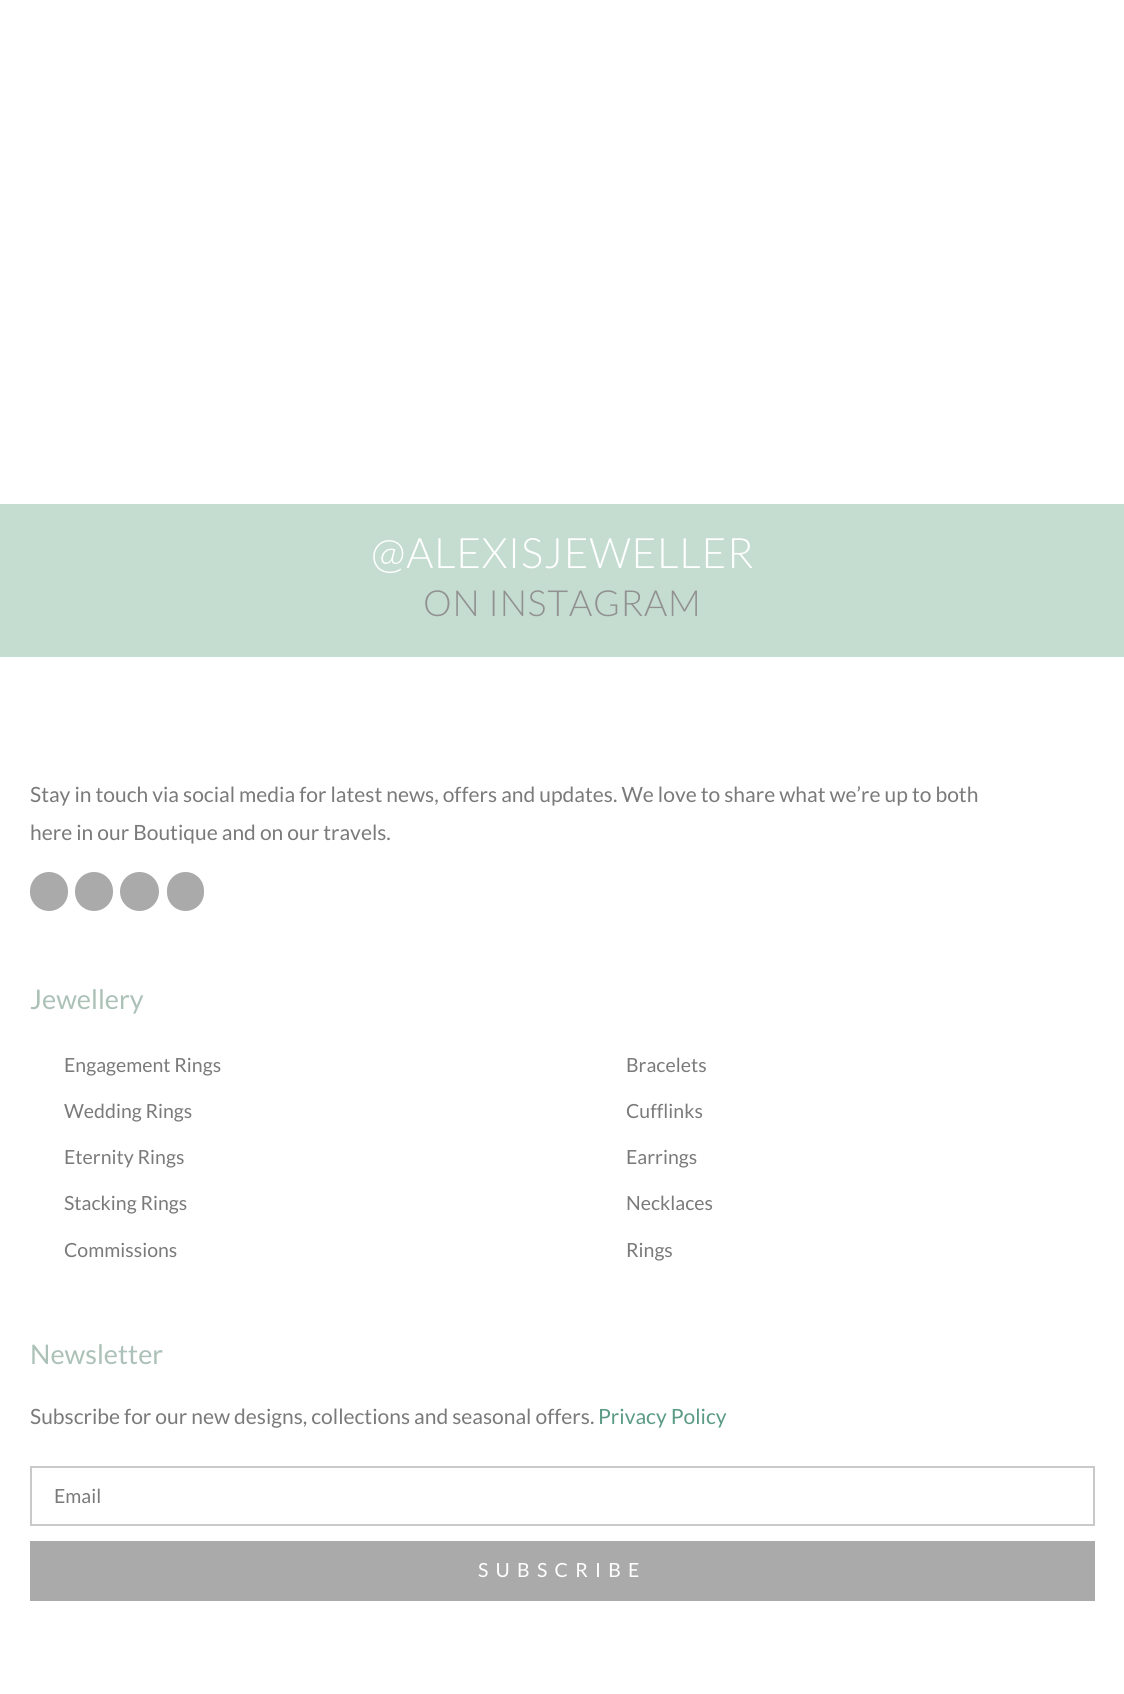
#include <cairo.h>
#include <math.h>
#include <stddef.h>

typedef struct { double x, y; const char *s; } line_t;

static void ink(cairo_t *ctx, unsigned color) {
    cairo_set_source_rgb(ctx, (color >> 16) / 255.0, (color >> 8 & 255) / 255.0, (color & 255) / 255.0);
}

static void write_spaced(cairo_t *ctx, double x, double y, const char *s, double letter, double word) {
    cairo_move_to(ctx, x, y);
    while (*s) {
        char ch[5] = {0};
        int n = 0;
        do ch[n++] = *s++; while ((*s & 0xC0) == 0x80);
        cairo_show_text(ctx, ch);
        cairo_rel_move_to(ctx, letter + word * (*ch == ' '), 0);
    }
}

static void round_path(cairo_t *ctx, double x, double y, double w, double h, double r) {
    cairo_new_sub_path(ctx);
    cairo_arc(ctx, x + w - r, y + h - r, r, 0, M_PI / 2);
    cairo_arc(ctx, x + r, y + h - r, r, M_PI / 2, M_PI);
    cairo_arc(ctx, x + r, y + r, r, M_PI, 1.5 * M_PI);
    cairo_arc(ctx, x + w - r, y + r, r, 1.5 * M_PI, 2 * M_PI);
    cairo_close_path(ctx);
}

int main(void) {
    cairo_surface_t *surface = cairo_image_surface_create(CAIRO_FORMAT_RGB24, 1124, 1694);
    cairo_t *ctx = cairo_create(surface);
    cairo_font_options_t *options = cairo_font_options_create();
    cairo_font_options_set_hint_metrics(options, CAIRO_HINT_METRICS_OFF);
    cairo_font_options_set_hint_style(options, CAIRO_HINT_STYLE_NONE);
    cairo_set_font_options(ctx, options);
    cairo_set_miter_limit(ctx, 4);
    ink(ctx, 0xFFFFFF);
    cairo_paint(ctx);
    ink(ctx, 0xC5DDD0);
    cairo_rectangle(ctx, 0, 504, 1124, 153);
    cairo_fill(ctx);
    cairo_select_font_face(ctx, "Lato Light", CAIRO_FONT_SLANT_NORMAL, CAIRO_FONT_WEIGHT_NORMAL);
    cairo_set_font_size(ctx, 42);
    ink(ctx, 0xFFFFFF);
    write_spaced(ctx, 371, 568, "@ALEXISJEWELLER", 0.75, 0);
    cairo_set_font_size(ctx, 36);
    ink(ctx, 0x919191);
    write_spaced(ctx, 423, 616, "ON INSTAGRAM", 0.75, 0);
    cairo_select_font_face(ctx, "Lato", CAIRO_FONT_SLANT_NORMAL, CAIRO_FONT_WEIGHT_NORMAL);
    cairo_set_font_size(ctx, 21);
    ink(ctx, 0x7A7A7A);
    cairo_move_to(ctx, 30, 802);
    cairo_show_text(ctx, "Stay in touch via social media for latest news, offers and updates. We love to share what we’re up to both");
    cairo_move_to(ctx, 30, 840);
    cairo_show_text(ctx, "here in our Boutique and on our travels.");
    ink(ctx, 0xAAAAAA);
    round_path(ctx, 30, 872, 38, 39, 19);
    cairo_fill(ctx);
    round_path(ctx, 75, 872, 38, 39, 19);
    cairo_fill(ctx);
    cairo_arc(ctx, 139.5, 891.5, 19.5, 0, 2 * M_PI);
    cairo_fill(ctx);
    round_path(ctx, 167, 872, 37, 39, 18.5);
    cairo_fill(ctx);
    cairo_set_font_size(ctx, 27);
    ink(ctx, 0xACC1B7);
    cairo_move_to(ctx, 30, 1009);
    cairo_show_text(ctx, "Jewellery");
    cairo_set_font_size(ctx, 19.5);
    ink(ctx, 0x7A7A7A);
    {
        static const line_t items[] = {
            {64, 1072, "Engagement Rings"},
            {64, 1118, "Wedding Rings"},
            {64, 1164, "Eternity Rings"},
            {64, 1210, "Stacking Rings"},
            {64, 1257, "Commissions"},
            {626, 1072, "Bracelets"},
            {626, 1118, "Cufflinks"},
            {626, 1164, "Earrings"},
            {626, 1210, "Necklaces"},
            {626, 1257, "Rings"},
        };
        for (size_t i = 0; i < sizeof items / sizeof *items; i++) {
            cairo_move_to(ctx, items[i].x, items[i].y);
            cairo_show_text(ctx, items[i].s);
        }
    }
    cairo_set_font_size(ctx, 27);
    ink(ctx, 0xACC1B7);
    cairo_move_to(ctx, 30, 1364);
    cairo_show_text(ctx, "Newsletter");
    cairo_set_font_size(ctx, 21);
    ink(ctx, 0x7A7A7A);
    cairo_move_to(ctx, 30, 1424);
    cairo_show_text(ctx, "Subscribe for our new designs, collections and seasonal offers.");
    ink(ctx, 0x5B9B86);
    cairo_move_to(ctx, 598, 1424);
    cairo_show_text(ctx, "Privacy Policy");
    cairo_rectangle(ctx, 31, 1467, 1063, 58);
    ink(ctx, 0xC9C9C9);
    cairo_stroke(ctx);
    cairo_set_font_size(ctx, 19.5);
    ink(ctx, 0x7A7A7A);
    cairo_move_to(ctx, 54, 1503);
    cairo_show_text(ctx, "Email");
    ink(ctx, 0xAAAAAA);
    cairo_rectangle(ctx, 30, 1541, 1065, 60);
    cairo_fill(ctx);
    ink(ctx, 0xFFFFFF);
    write_spaced(ctx, 478, 1577, "SUBSCRIBE", 7.25, 0);
    cairo_surface_write_to_png(surface, "image.png");
    cairo_font_options_destroy(options);
    cairo_destroy(ctx);
    cairo_surface_destroy(surface);
    return 0;
}
